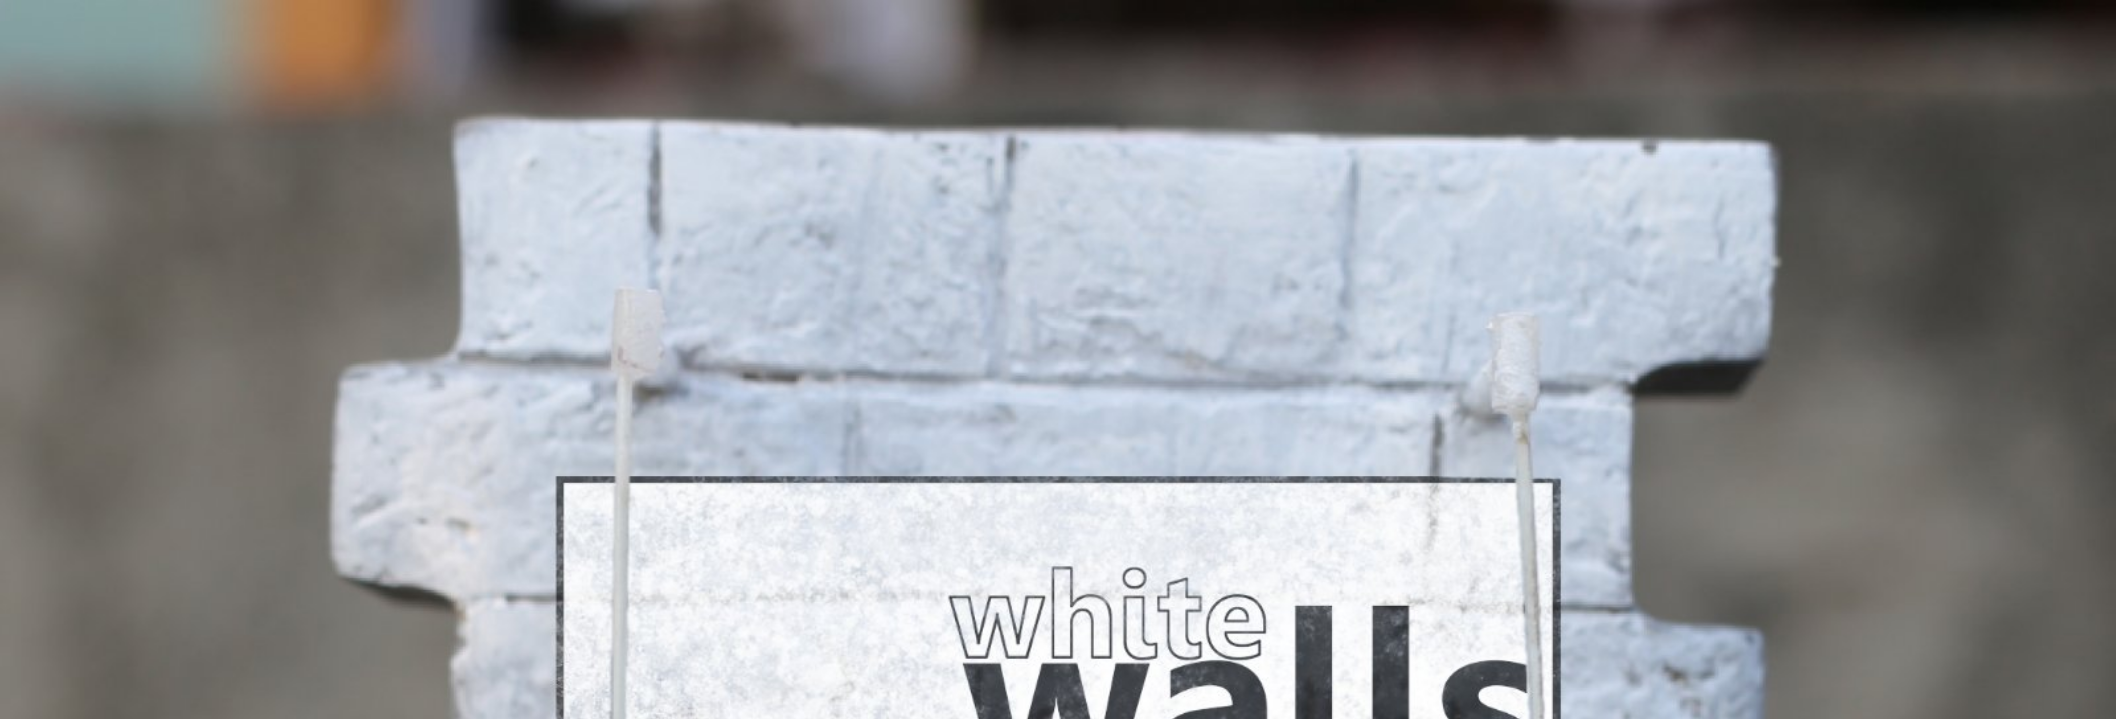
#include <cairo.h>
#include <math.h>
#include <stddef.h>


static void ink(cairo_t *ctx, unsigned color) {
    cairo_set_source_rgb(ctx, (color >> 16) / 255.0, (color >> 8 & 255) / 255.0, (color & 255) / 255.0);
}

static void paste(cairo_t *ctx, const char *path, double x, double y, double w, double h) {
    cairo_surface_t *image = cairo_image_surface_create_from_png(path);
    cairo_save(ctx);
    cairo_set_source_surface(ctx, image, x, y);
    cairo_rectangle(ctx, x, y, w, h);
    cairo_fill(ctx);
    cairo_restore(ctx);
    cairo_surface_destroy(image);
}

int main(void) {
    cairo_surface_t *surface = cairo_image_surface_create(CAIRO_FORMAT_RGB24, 2116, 719);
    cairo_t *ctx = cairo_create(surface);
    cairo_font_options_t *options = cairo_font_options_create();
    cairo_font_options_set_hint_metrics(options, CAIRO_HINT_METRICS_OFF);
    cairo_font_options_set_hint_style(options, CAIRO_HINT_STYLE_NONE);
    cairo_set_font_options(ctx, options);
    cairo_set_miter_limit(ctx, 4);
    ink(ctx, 0xFFFFFF);
    cairo_paint(ctx);
    paste(ctx, "media/1.png", 0, 0, 2116, 719);
    cairo_surface_write_to_png(surface, "image.png");
    cairo_font_options_destroy(options);
    cairo_destroy(ctx);
    cairo_surface_destroy(surface);
    return 0;
}
